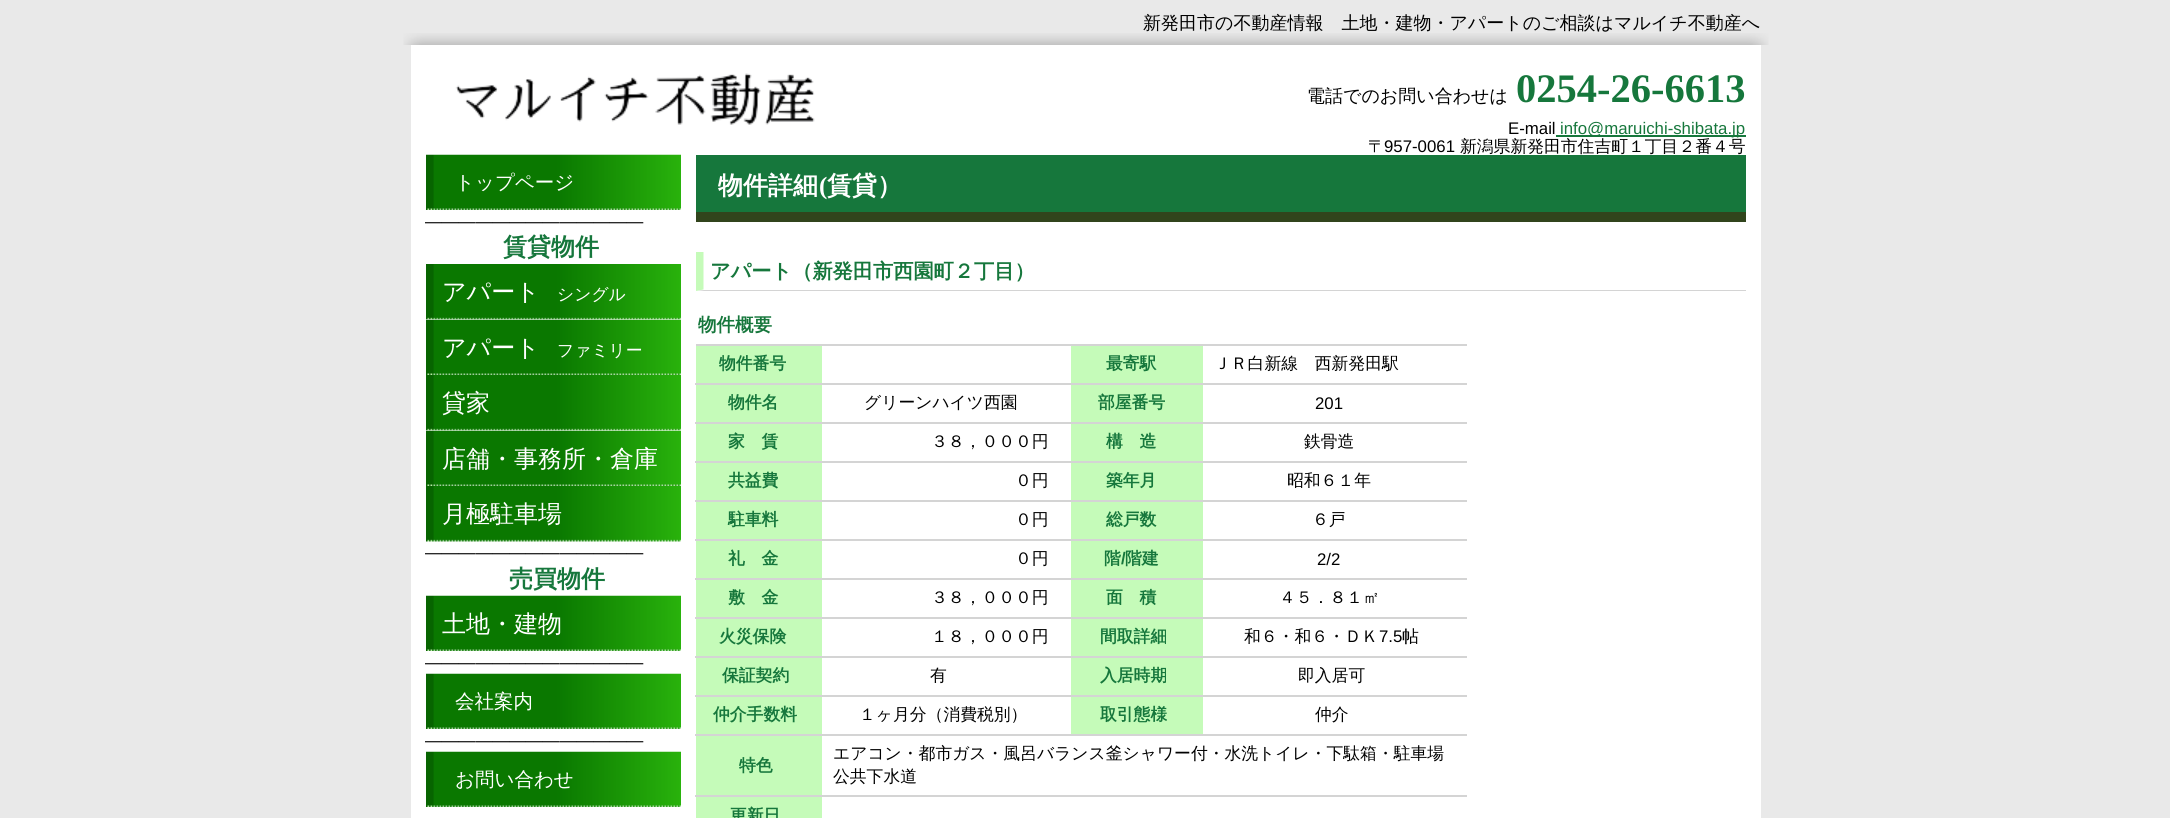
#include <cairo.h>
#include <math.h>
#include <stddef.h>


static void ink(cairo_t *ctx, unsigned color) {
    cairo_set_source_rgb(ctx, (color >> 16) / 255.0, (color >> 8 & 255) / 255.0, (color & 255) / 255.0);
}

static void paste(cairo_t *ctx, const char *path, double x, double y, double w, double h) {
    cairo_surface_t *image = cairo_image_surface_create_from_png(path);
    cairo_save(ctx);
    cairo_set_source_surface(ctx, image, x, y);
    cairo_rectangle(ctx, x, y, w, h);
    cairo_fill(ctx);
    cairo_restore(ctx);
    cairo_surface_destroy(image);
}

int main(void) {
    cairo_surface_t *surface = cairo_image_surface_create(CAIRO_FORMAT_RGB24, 2170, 818);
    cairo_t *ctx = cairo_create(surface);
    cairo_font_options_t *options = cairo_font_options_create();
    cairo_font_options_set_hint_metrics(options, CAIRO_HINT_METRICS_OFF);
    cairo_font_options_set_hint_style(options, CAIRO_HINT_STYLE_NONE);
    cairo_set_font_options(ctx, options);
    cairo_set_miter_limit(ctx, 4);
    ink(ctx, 0xE9E9E9);
    cairo_paint(ctx);
    ink(ctx, 0xFFFFFF);
    cairo_rectangle(ctx, 411, 45, 1350, 773);
    cairo_fill(ctx);
    paste(ctx, "media/1.png", 403, 33, 1366, 12);
    cairo_select_font_face(ctx, "WenQuanYi Zen Hei Medium", CAIRO_FONT_SLANT_NORMAL, CAIRO_FONT_WEIGHT_NORMAL);
    cairo_set_font_size(ctx, 18);
    ink(ctx, 0x000000);
    cairo_move_to(ctx, 1143, 29);
    cairo_show_text(ctx, "新発田市の不動産情報　土地・建物・アパートのご相談はマルイチ不動産へ");
    paste(ctx, "media/2.png", 455, 73, 360, 52);
    cairo_move_to(ctx, 1307, 102);
    cairo_show_text(ctx, "電話でのお問い合わせは");
    cairo_select_font_face(ctx, "Liberation Serif", CAIRO_FONT_SLANT_NORMAL, CAIRO_FONT_WEIGHT_BOLD);
    cairo_set_font_size(ctx, 40.5);
    ink(ctx, 0x16773C);
    cairo_move_to(ctx, 1516, 102);
    cairo_show_text(ctx, "0254-26-6613");
    cairo_select_font_face(ctx, "Liberation Sans", CAIRO_FONT_SLANT_NORMAL, CAIRO_FONT_WEIGHT_NORMAL);
    cairo_set_font_size(ctx, 16.8);
    ink(ctx, 0x000000);
    cairo_move_to(ctx, 1508, 134);
    cairo_show_text(ctx, "E-mail");
    ink(ctx, 0x16773C);
    cairo_rectangle(ctx, 1556, 135, 190, 2);
    cairo_fill(ctx);
    cairo_move_to(ctx, 1560, 134);
    cairo_show_text(ctx, "info@maruichi-shibata.jp");
    cairo_select_font_face(ctx, "WenQuanYi Zen Hei Medium", CAIRO_FONT_SLANT_NORMAL, CAIRO_FONT_WEIGHT_NORMAL);
    ink(ctx, 0x000000);
    cairo_move_to(ctx, 1368, 152);
    cairo_show_text(ctx, "〒");
    cairo_select_font_face(ctx, "Liberation Sans", CAIRO_FONT_SLANT_NORMAL, CAIRO_FONT_WEIGHT_NORMAL);
    cairo_move_to(ctx, 1384, 152);
    cairo_show_text(ctx, "957-0061");
    cairo_select_font_face(ctx, "WenQuanYi Zen Hei Medium", CAIRO_FONT_SLANT_NORMAL, CAIRO_FONT_WEIGHT_NORMAL);
    cairo_move_to(ctx, 1460, 152);
    cairo_show_text(ctx, "新潟県新発田市住吉町１丁目２番４号");
    paste(ctx, "media/3.png", 426, 154, 255, 56);
    cairo_set_font_size(ctx, 19.5);
    ink(ctx, 0xFFFFFF);
    cairo_move_to(ctx, 455, 189);
    cairo_show_text(ctx, "トップページ");
    cairo_select_font_face(ctx, "Liberation Sans", CAIRO_FONT_SLANT_NORMAL, CAIRO_FONT_WEIGHT_NORMAL);
    cairo_set_font_size(ctx, 16.8);
    ink(ctx, 0x000000);
    cairo_move_to(ctx, 425, 227);
    cairo_show_text(ctx, "―――――――――――――");
    cairo_select_font_face(ctx, "WenQuanYi Zen Hei", CAIRO_FONT_SLANT_NORMAL, CAIRO_FONT_WEIGHT_BOLD);
    cairo_set_font_size(ctx, 24);
    ink(ctx, 0x16773C);
    cairo_move_to(ctx, 503, 255);
    cairo_show_text(ctx, "賃貸物件");
    paste(ctx, "media/4.png", 426, 264, 255, 56);
    cairo_select_font_face(ctx, "WenQuanYi Zen Hei Medium", CAIRO_FONT_SLANT_NORMAL, CAIRO_FONT_WEIGHT_NORMAL);
    ink(ctx, 0xFFFFFF);
    cairo_move_to(ctx, 442, 300);
    cairo_show_text(ctx, "アパート");
    cairo_set_font_size(ctx, 16.8);
    cairo_move_to(ctx, 557, 300);
    cairo_show_text(ctx, "シングル");
    paste(ctx, "media/5.png", 426, 319, 255, 56);
    cairo_set_font_size(ctx, 24);
    cairo_move_to(ctx, 442, 356);
    cairo_show_text(ctx, "アパート");
    cairo_set_font_size(ctx, 16.8);
    cairo_move_to(ctx, 557, 356);
    cairo_show_text(ctx, "ファミリー");
    paste(ctx, "media/4.png", 426, 375, 255, 56);
    cairo_set_font_size(ctx, 24);
    cairo_move_to(ctx, 442, 411);
    cairo_show_text(ctx, "貸家");
    paste(ctx, "media/5.png", 426, 430, 255, 56);
    cairo_move_to(ctx, 442, 467);
    cairo_show_text(ctx, "店舗・事務所・倉庫");
    paste(ctx, "media/6.png", 426, 486, 255, 56);
    cairo_move_to(ctx, 442, 522);
    cairo_show_text(ctx, "月極駐車場");
    cairo_select_font_face(ctx, "Liberation Sans", CAIRO_FONT_SLANT_NORMAL, CAIRO_FONT_WEIGHT_NORMAL);
    cairo_set_font_size(ctx, 16.8);
    ink(ctx, 0x000000);
    cairo_move_to(ctx, 425, 558);
    cairo_show_text(ctx, "―――――――――――――");
    cairo_select_font_face(ctx, "WenQuanYi Zen Hei", CAIRO_FONT_SLANT_NORMAL, CAIRO_FONT_WEIGHT_BOLD);
    cairo_set_font_size(ctx, 24);
    ink(ctx, 0x16773C);
    cairo_move_to(ctx, 509, 587);
    cairo_show_text(ctx, "売買物件");
    paste(ctx, "media/3.png", 426, 595, 255, 56);
    cairo_select_font_face(ctx, "WenQuanYi Zen Hei Medium", CAIRO_FONT_SLANT_NORMAL, CAIRO_FONT_WEIGHT_NORMAL);
    ink(ctx, 0xFFFFFF);
    cairo_move_to(ctx, 442, 632);
    cairo_show_text(ctx, "土地・建物");
    cairo_select_font_face(ctx, "Liberation Sans", CAIRO_FONT_SLANT_NORMAL, CAIRO_FONT_WEIGHT_NORMAL);
    cairo_set_font_size(ctx, 16.8);
    ink(ctx, 0x000000);
    cairo_move_to(ctx, 425, 668);
    cairo_show_text(ctx, "―――――――――――――");
    paste(ctx, "media/3.png", 426, 673, 255, 56);
    cairo_select_font_face(ctx, "WenQuanYi Zen Hei Medium", CAIRO_FONT_SLANT_NORMAL, CAIRO_FONT_WEIGHT_NORMAL);
    cairo_set_font_size(ctx, 19.5);
    ink(ctx, 0xFFFFFF);
    cairo_move_to(ctx, 455, 708);
    cairo_show_text(ctx, "会社案内");
    cairo_select_font_face(ctx, "Liberation Sans", CAIRO_FONT_SLANT_NORMAL, CAIRO_FONT_WEIGHT_NORMAL);
    cairo_set_font_size(ctx, 16.8);
    ink(ctx, 0x000000);
    cairo_move_to(ctx, 425, 746);
    cairo_show_text(ctx, "―――――――――――――");
    paste(ctx, "media/3.png", 426, 751, 255, 56);
    cairo_select_font_face(ctx, "WenQuanYi Zen Hei Medium", CAIRO_FONT_SLANT_NORMAL, CAIRO_FONT_WEIGHT_NORMAL);
    cairo_set_font_size(ctx, 19.5);
    ink(ctx, 0xFFFFFF);
    cairo_move_to(ctx, 455, 786);
    cairo_show_text(ctx, "お問い合わせ");
    ink(ctx, 0x16773C);
    cairo_rectangle(ctx, 696, 155, 1050, 57);
    cairo_fill(ctx);
    ink(ctx, 0x31441C);
    cairo_rectangle(ctx, 696, 212, 1050, 10);
    cairo_fill(ctx);
    cairo_select_font_face(ctx, "WenQuanYi Zen Hei", CAIRO_FONT_SLANT_NORMAL, CAIRO_FONT_WEIGHT_BOLD);
    cairo_set_font_size(ctx, 25);
    ink(ctx, 0xFFFFFF);
    cairo_move_to(ctx, 718, 194);
    cairo_show_text(ctx, "物件詳細");
    cairo_select_font_face(ctx, "Liberation Serif", CAIRO_FONT_SLANT_NORMAL, CAIRO_FONT_WEIGHT_BOLD);
    cairo_move_to(ctx, 819, 194);
    cairo_show_text(ctx, "(");
    cairo_select_font_face(ctx, "WenQuanYi Zen Hei", CAIRO_FONT_SLANT_NORMAL, CAIRO_FONT_WEIGHT_BOLD);
    cairo_move_to(ctx, 827, 194);
    cairo_show_text(ctx, "賃貸）");
    ink(ctx, 0xD4D4D4);
    cairo_new_path(ctx);
    cairo_move_to(ctx, 1746, 291);
    cairo_line_to(ctx, 696, 291);
    cairo_line_to(ctx, 704, 290);
    cairo_line_to(ctx, 1746, 290);
    cairo_close_path(ctx);
    cairo_fill(ctx);
    ink(ctx, 0xC5FBB9);
    cairo_new_path(ctx);
    cairo_move_to(ctx, 696, 291);
    cairo_line_to(ctx, 696, 252);
    cairo_line_to(ctx, 703.5, 252);
    cairo_line_to(ctx, 703.5, 289.5);
    cairo_close_path(ctx);
    cairo_fill(ctx);
    cairo_set_font_size(ctx, 20.2);
    ink(ctx, 0x16773C);
    cairo_move_to(ctx, 710, 278);
    cairo_show_text(ctx, "アパート（新発田市西園町２丁目）");
    cairo_set_font_size(ctx, 18.5);
    cairo_move_to(ctx, 698, 331);
    cairo_show_text(ctx, "物件概要");
    ink(ctx, 0xD4D4D4);
    cairo_rectangle(ctx, 696, 344, 771, 2);
    cairo_fill(ctx);
    ink(ctx, 0xC5FBB9);
    cairo_rectangle(ctx, 696, 346, 126, 37);
    cairo_fill(ctx);
    cairo_set_font_size(ctx, 16.8);
    ink(ctx, 0x16773C);
    cairo_move_to(ctx, 719, 369);
    cairo_show_text(ctx, "物件番号");
    ink(ctx, 0xC5FBB9);
    cairo_rectangle(ctx, 1071, 346, 132, 37);
    cairo_fill(ctx);
    ink(ctx, 0x16773C);
    cairo_move_to(ctx, 1106, 369);
    cairo_show_text(ctx, "最寄駅");
    ink(ctx, 0xD4D4D4);
    cairo_rectangle(ctx, 695, 383, 772, 2);
    cairo_fill(ctx);
    cairo_select_font_face(ctx, "WenQuanYi Zen Hei Medium", CAIRO_FONT_SLANT_NORMAL, CAIRO_FONT_WEIGHT_NORMAL);
    ink(ctx, 0x000000);
    cairo_move_to(ctx, 1214, 369);
    cairo_show_text(ctx, "ＪＲ白新線　西新発田駅");
    ink(ctx, 0xC5FBB9);
    cairo_rectangle(ctx, 696, 385, 126, 37);
    cairo_fill(ctx);
    cairo_select_font_face(ctx, "WenQuanYi Zen Hei", CAIRO_FONT_SLANT_NORMAL, CAIRO_FONT_WEIGHT_BOLD);
    ink(ctx, 0x16773C);
    cairo_move_to(ctx, 728, 408);
    cairo_show_text(ctx, "物件名");
    cairo_select_font_face(ctx, "WenQuanYi Zen Hei Medium", CAIRO_FONT_SLANT_NORMAL, CAIRO_FONT_WEIGHT_NORMAL);
    ink(ctx, 0x000000);
    cairo_move_to(ctx, 864, 408);
    cairo_show_text(ctx, "グリーンハイツ西園");
    ink(ctx, 0xC5FBB9);
    cairo_rectangle(ctx, 1071, 385, 132, 37);
    cairo_fill(ctx);
    cairo_select_font_face(ctx, "WenQuanYi Zen Hei", CAIRO_FONT_SLANT_NORMAL, CAIRO_FONT_WEIGHT_BOLD);
    ink(ctx, 0x16773C);
    cairo_move_to(ctx, 1098, 408);
    cairo_show_text(ctx, "部屋番号");
    ink(ctx, 0xD4D4D4);
    cairo_rectangle(ctx, 695, 422, 772, 2);
    cairo_fill(ctx);
    cairo_select_font_face(ctx, "Liberation Sans", CAIRO_FONT_SLANT_NORMAL, CAIRO_FONT_WEIGHT_NORMAL);
    ink(ctx, 0x000000);
    cairo_move_to(ctx, 1315, 409);
    cairo_show_text(ctx, "201");
    ink(ctx, 0xC5FBB9);
    cairo_rectangle(ctx, 696, 424, 126, 37);
    cairo_fill(ctx);
    cairo_select_font_face(ctx, "WenQuanYi Zen Hei", CAIRO_FONT_SLANT_NORMAL, CAIRO_FONT_WEIGHT_BOLD);
    ink(ctx, 0x16773C);
    cairo_move_to(ctx, 728, 447);
    cairo_show_text(ctx, "家　賃");
    cairo_select_font_face(ctx, "WenQuanYi Zen Hei Medium", CAIRO_FONT_SLANT_NORMAL, CAIRO_FONT_WEIGHT_NORMAL);
    ink(ctx, 0x000000);
    cairo_move_to(ctx, 931, 447);
    cairo_show_text(ctx, "３８，０００円");
    ink(ctx, 0xC5FBB9);
    cairo_rectangle(ctx, 1071, 424, 132, 37);
    cairo_fill(ctx);
    cairo_select_font_face(ctx, "WenQuanYi Zen Hei", CAIRO_FONT_SLANT_NORMAL, CAIRO_FONT_WEIGHT_BOLD);
    ink(ctx, 0x16773C);
    cairo_move_to(ctx, 1106, 447);
    cairo_show_text(ctx, "構　造");
    ink(ctx, 0xD4D4D4);
    cairo_rectangle(ctx, 695, 461, 772, 2);
    cairo_fill(ctx);
    cairo_select_font_face(ctx, "WenQuanYi Zen Hei Medium", CAIRO_FONT_SLANT_NORMAL, CAIRO_FONT_WEIGHT_NORMAL);
    ink(ctx, 0x000000);
    cairo_move_to(ctx, 1304, 447);
    cairo_show_text(ctx, "鉄骨造");
    ink(ctx, 0xC5FBB9);
    cairo_rectangle(ctx, 696, 463, 126, 37);
    cairo_fill(ctx);
    cairo_select_font_face(ctx, "WenQuanYi Zen Hei", CAIRO_FONT_SLANT_NORMAL, CAIRO_FONT_WEIGHT_BOLD);
    ink(ctx, 0x16773C);
    cairo_move_to(ctx, 728, 486);
    cairo_show_text(ctx, "共益費");
    cairo_select_font_face(ctx, "WenQuanYi Zen Hei Medium", CAIRO_FONT_SLANT_NORMAL, CAIRO_FONT_WEIGHT_NORMAL);
    ink(ctx, 0x000000);
    cairo_move_to(ctx, 1015, 486);
    cairo_show_text(ctx, "０円");
    ink(ctx, 0xC5FBB9);
    cairo_rectangle(ctx, 1071, 463, 132, 37);
    cairo_fill(ctx);
    cairo_select_font_face(ctx, "WenQuanYi Zen Hei", CAIRO_FONT_SLANT_NORMAL, CAIRO_FONT_WEIGHT_BOLD);
    ink(ctx, 0x16773C);
    cairo_move_to(ctx, 1106, 486);
    cairo_show_text(ctx, "築年月");
    ink(ctx, 0xD4D4D4);
    cairo_rectangle(ctx, 695, 500, 772, 2);
    cairo_fill(ctx);
    cairo_select_font_face(ctx, "WenQuanYi Zen Hei Medium", CAIRO_FONT_SLANT_NORMAL, CAIRO_FONT_WEIGHT_NORMAL);
    ink(ctx, 0x000000);
    cairo_move_to(ctx, 1287, 486);
    cairo_show_text(ctx, "昭和６１年");
    ink(ctx, 0xC5FBB9);
    cairo_rectangle(ctx, 696, 502, 126, 37);
    cairo_fill(ctx);
    cairo_select_font_face(ctx, "WenQuanYi Zen Hei", CAIRO_FONT_SLANT_NORMAL, CAIRO_FONT_WEIGHT_BOLD);
    ink(ctx, 0x16773C);
    cairo_move_to(ctx, 728, 525);
    cairo_show_text(ctx, "駐車料");
    cairo_select_font_face(ctx, "WenQuanYi Zen Hei Medium", CAIRO_FONT_SLANT_NORMAL, CAIRO_FONT_WEIGHT_NORMAL);
    ink(ctx, 0x000000);
    cairo_move_to(ctx, 1015, 525);
    cairo_show_text(ctx, "０円");
    ink(ctx, 0xC5FBB9);
    cairo_rectangle(ctx, 1071, 502, 132, 37);
    cairo_fill(ctx);
    cairo_select_font_face(ctx, "WenQuanYi Zen Hei", CAIRO_FONT_SLANT_NORMAL, CAIRO_FONT_WEIGHT_BOLD);
    ink(ctx, 0x16773C);
    cairo_move_to(ctx, 1106, 525);
    cairo_show_text(ctx, "総戸数");
    ink(ctx, 0xD4D4D4);
    cairo_rectangle(ctx, 695, 539, 772, 2);
    cairo_fill(ctx);
    cairo_select_font_face(ctx, "WenQuanYi Zen Hei Medium", CAIRO_FONT_SLANT_NORMAL, CAIRO_FONT_WEIGHT_NORMAL);
    ink(ctx, 0x000000);
    cairo_move_to(ctx, 1312, 525);
    cairo_show_text(ctx, "６戸");
    ink(ctx, 0xC5FBB9);
    cairo_rectangle(ctx, 696, 541, 126, 37);
    cairo_fill(ctx);
    cairo_select_font_face(ctx, "WenQuanYi Zen Hei", CAIRO_FONT_SLANT_NORMAL, CAIRO_FONT_WEIGHT_BOLD);
    ink(ctx, 0x16773C);
    cairo_move_to(ctx, 728, 564);
    cairo_show_text(ctx, "礼　金");
    cairo_select_font_face(ctx, "WenQuanYi Zen Hei Medium", CAIRO_FONT_SLANT_NORMAL, CAIRO_FONT_WEIGHT_NORMAL);
    ink(ctx, 0x000000);
    cairo_move_to(ctx, 1015, 564);
    cairo_show_text(ctx, "０円");
    ink(ctx, 0xC5FBB9);
    cairo_rectangle(ctx, 1071, 541, 132, 37);
    cairo_fill(ctx);
    cairo_select_font_face(ctx, "WenQuanYi Zen Hei", CAIRO_FONT_SLANT_NORMAL, CAIRO_FONT_WEIGHT_BOLD);
    ink(ctx, 0x16773C);
    cairo_move_to(ctx, 1104, 564);
    cairo_show_text(ctx, "階");
    cairo_select_font_face(ctx, "Liberation Sans", CAIRO_FONT_SLANT_NORMAL, CAIRO_FONT_WEIGHT_BOLD);
    cairo_move_to(ctx, 1121, 564);
    cairo_show_text(ctx, "/");
    cairo_select_font_face(ctx, "WenQuanYi Zen Hei", CAIRO_FONT_SLANT_NORMAL, CAIRO_FONT_WEIGHT_BOLD);
    cairo_move_to(ctx, 1125, 564);
    cairo_show_text(ctx, "階建");
    ink(ctx, 0xD4D4D4);
    cairo_rectangle(ctx, 695, 578, 772, 2);
    cairo_fill(ctx);
    cairo_select_font_face(ctx, "Liberation Sans", CAIRO_FONT_SLANT_NORMAL, CAIRO_FONT_WEIGHT_NORMAL);
    ink(ctx, 0x000000);
    cairo_move_to(ctx, 1317, 565);
    cairo_show_text(ctx, "2/2");
    ink(ctx, 0xC5FBB9);
    cairo_rectangle(ctx, 696, 580, 126, 37);
    cairo_fill(ctx);
    cairo_select_font_face(ctx, "WenQuanYi Zen Hei", CAIRO_FONT_SLANT_NORMAL, CAIRO_FONT_WEIGHT_BOLD);
    ink(ctx, 0x16773C);
    cairo_move_to(ctx, 728, 603);
    cairo_show_text(ctx, "敷　金");
    cairo_select_font_face(ctx, "WenQuanYi Zen Hei Medium", CAIRO_FONT_SLANT_NORMAL, CAIRO_FONT_WEIGHT_NORMAL);
    ink(ctx, 0x000000);
    cairo_move_to(ctx, 931, 603);
    cairo_show_text(ctx, "３８，０００円");
    ink(ctx, 0xC5FBB9);
    cairo_rectangle(ctx, 1071, 580, 132, 37);
    cairo_fill(ctx);
    cairo_select_font_face(ctx, "WenQuanYi Zen Hei", CAIRO_FONT_SLANT_NORMAL, CAIRO_FONT_WEIGHT_BOLD);
    ink(ctx, 0x16773C);
    cairo_move_to(ctx, 1106, 603);
    cairo_show_text(ctx, "面　積");
    ink(ctx, 0xD4D4D4);
    cairo_rectangle(ctx, 695, 617, 772, 2);
    cairo_fill(ctx);
    cairo_select_font_face(ctx, "WenQuanYi Zen Hei Medium", CAIRO_FONT_SLANT_NORMAL, CAIRO_FONT_WEIGHT_NORMAL);
    ink(ctx, 0x000000);
    cairo_move_to(ctx, 1279, 603);
    cairo_show_text(ctx, "４５．８１㎡");
    ink(ctx, 0xC5FBB9);
    cairo_rectangle(ctx, 696, 619, 126, 37);
    cairo_fill(ctx);
    cairo_select_font_face(ctx, "WenQuanYi Zen Hei", CAIRO_FONT_SLANT_NORMAL, CAIRO_FONT_WEIGHT_BOLD);
    ink(ctx, 0x16773C);
    cairo_move_to(ctx, 719, 642);
    cairo_show_text(ctx, "火災保険");
    cairo_select_font_face(ctx, "WenQuanYi Zen Hei Medium", CAIRO_FONT_SLANT_NORMAL, CAIRO_FONT_WEIGHT_NORMAL);
    ink(ctx, 0x000000);
    cairo_move_to(ctx, 931, 642);
    cairo_show_text(ctx, "１８，０００円");
    ink(ctx, 0xC5FBB9);
    cairo_rectangle(ctx, 1071, 619, 132, 37);
    cairo_fill(ctx);
    cairo_select_font_face(ctx, "WenQuanYi Zen Hei", CAIRO_FONT_SLANT_NORMAL, CAIRO_FONT_WEIGHT_BOLD);
    ink(ctx, 0x16773C);
    cairo_move_to(ctx, 1100, 642);
    cairo_show_text(ctx, "間取詳細");
    ink(ctx, 0xD4D4D4);
    cairo_rectangle(ctx, 695, 656, 772, 2);
    cairo_fill(ctx);
    cairo_select_font_face(ctx, "WenQuanYi Zen Hei Medium", CAIRO_FONT_SLANT_NORMAL, CAIRO_FONT_WEIGHT_NORMAL);
    ink(ctx, 0x000000);
    cairo_move_to(ctx, 1244, 642);
    cairo_show_text(ctx, "和６・和６・ＤＫ");
    cairo_select_font_face(ctx, "Liberation Sans", CAIRO_FONT_SLANT_NORMAL, CAIRO_FONT_WEIGHT_NORMAL);
    cairo_move_to(ctx, 1379, 642);
    cairo_show_text(ctx, "7.5");
    cairo_select_font_face(ctx, "WenQuanYi Zen Hei Medium", CAIRO_FONT_SLANT_NORMAL, CAIRO_FONT_WEIGHT_NORMAL);
    cairo_move_to(ctx, 1402, 642);
    cairo_show_text(ctx, "帖");
    ink(ctx, 0xC5FBB9);
    cairo_rectangle(ctx, 696, 658, 126, 37);
    cairo_fill(ctx);
    cairo_select_font_face(ctx, "WenQuanYi Zen Hei", CAIRO_FONT_SLANT_NORMAL, CAIRO_FONT_WEIGHT_BOLD);
    ink(ctx, 0x16773C);
    cairo_move_to(ctx, 722, 681);
    cairo_show_text(ctx, "保証契約");
    cairo_select_font_face(ctx, "WenQuanYi Zen Hei Medium", CAIRO_FONT_SLANT_NORMAL, CAIRO_FONT_WEIGHT_NORMAL);
    ink(ctx, 0x000000);
    cairo_move_to(ctx, 930, 681);
    cairo_show_text(ctx, "有");
    ink(ctx, 0xC5FBB9);
    cairo_rectangle(ctx, 1071, 658, 132, 37);
    cairo_fill(ctx);
    cairo_select_font_face(ctx, "WenQuanYi Zen Hei", CAIRO_FONT_SLANT_NORMAL, CAIRO_FONT_WEIGHT_BOLD);
    ink(ctx, 0x16773C);
    cairo_move_to(ctx, 1100, 681);
    cairo_show_text(ctx, "入居時期");
    ink(ctx, 0xD4D4D4);
    cairo_rectangle(ctx, 695, 695, 772, 2);
    cairo_fill(ctx);
    cairo_select_font_face(ctx, "WenQuanYi Zen Hei Medium", CAIRO_FONT_SLANT_NORMAL, CAIRO_FONT_WEIGHT_NORMAL);
    ink(ctx, 0x000000);
    cairo_move_to(ctx, 1298, 681);
    cairo_show_text(ctx, "即入居可");
    ink(ctx, 0xC5FBB9);
    cairo_rectangle(ctx, 696, 697, 126, 37);
    cairo_fill(ctx);
    cairo_select_font_face(ctx, "WenQuanYi Zen Hei", CAIRO_FONT_SLANT_NORMAL, CAIRO_FONT_WEIGHT_BOLD);
    ink(ctx, 0x16773C);
    cairo_move_to(ctx, 713, 720);
    cairo_show_text(ctx, "仲介手数料");
    cairo_select_font_face(ctx, "WenQuanYi Zen Hei Medium", CAIRO_FONT_SLANT_NORMAL, CAIRO_FONT_WEIGHT_NORMAL);
    ink(ctx, 0x000000);
    cairo_move_to(ctx, 859, 720);
    cairo_show_text(ctx, "１ヶ月分（消費税別）");
    ink(ctx, 0xC5FBB9);
    cairo_rectangle(ctx, 1071, 697, 132, 37);
    cairo_fill(ctx);
    cairo_select_font_face(ctx, "WenQuanYi Zen Hei", CAIRO_FONT_SLANT_NORMAL, CAIRO_FONT_WEIGHT_BOLD);
    ink(ctx, 0x16773C);
    cairo_move_to(ctx, 1100, 720);
    cairo_show_text(ctx, "取引態様");
    ink(ctx, 0xD4D4D4);
    cairo_rectangle(ctx, 695, 734, 772, 2);
    cairo_fill(ctx);
    cairo_select_font_face(ctx, "WenQuanYi Zen Hei Medium", CAIRO_FONT_SLANT_NORMAL, CAIRO_FONT_WEIGHT_NORMAL);
    ink(ctx, 0x000000);
    cairo_move_to(ctx, 1315, 720);
    cairo_show_text(ctx, "仲介");
    ink(ctx, 0xC5FBB9);
    cairo_rectangle(ctx, 696, 736, 126, 59);
    cairo_fill(ctx);
    cairo_select_font_face(ctx, "WenQuanYi Zen Hei", CAIRO_FONT_SLANT_NORMAL, CAIRO_FONT_WEIGHT_BOLD);
    ink(ctx, 0x16773C);
    cairo_move_to(ctx, 739, 771);
    cairo_show_text(ctx, "特色");
    ink(ctx, 0xD4D4D4);
    cairo_rectangle(ctx, 695, 795, 772, 2);
    cairo_fill(ctx);
    cairo_select_font_face(ctx, "WenQuanYi Zen Hei Medium", CAIRO_FONT_SLANT_NORMAL, CAIRO_FONT_WEIGHT_NORMAL);
    ink(ctx, 0x000000);
    cairo_move_to(ctx, 833, 759);
    cairo_show_text(ctx, "エアコン・都市ガス・風呂バランス釜シャワー付・水洗トイレ・下駄箱・駐車場");
    cairo_move_to(ctx, 833, 782);
    cairo_show_text(ctx, "公共下水道");
    ink(ctx, 0xC5FBB9);
    cairo_rectangle(ctx, 696, 797, 126, 21);
    cairo_fill(ctx);
    cairo_select_font_face(ctx, "WenQuanYi Zen Hei", CAIRO_FONT_SLANT_NORMAL, CAIRO_FONT_WEIGHT_BOLD);
    ink(ctx, 0x16773C);
    cairo_move_to(ctx, 730, 821);
    cairo_show_text(ctx, "更新日");
    cairo_surface_write_to_png(surface, "image.png");
    cairo_font_options_destroy(options);
    cairo_destroy(ctx);
    cairo_surface_destroy(surface);
    return 0;
}
